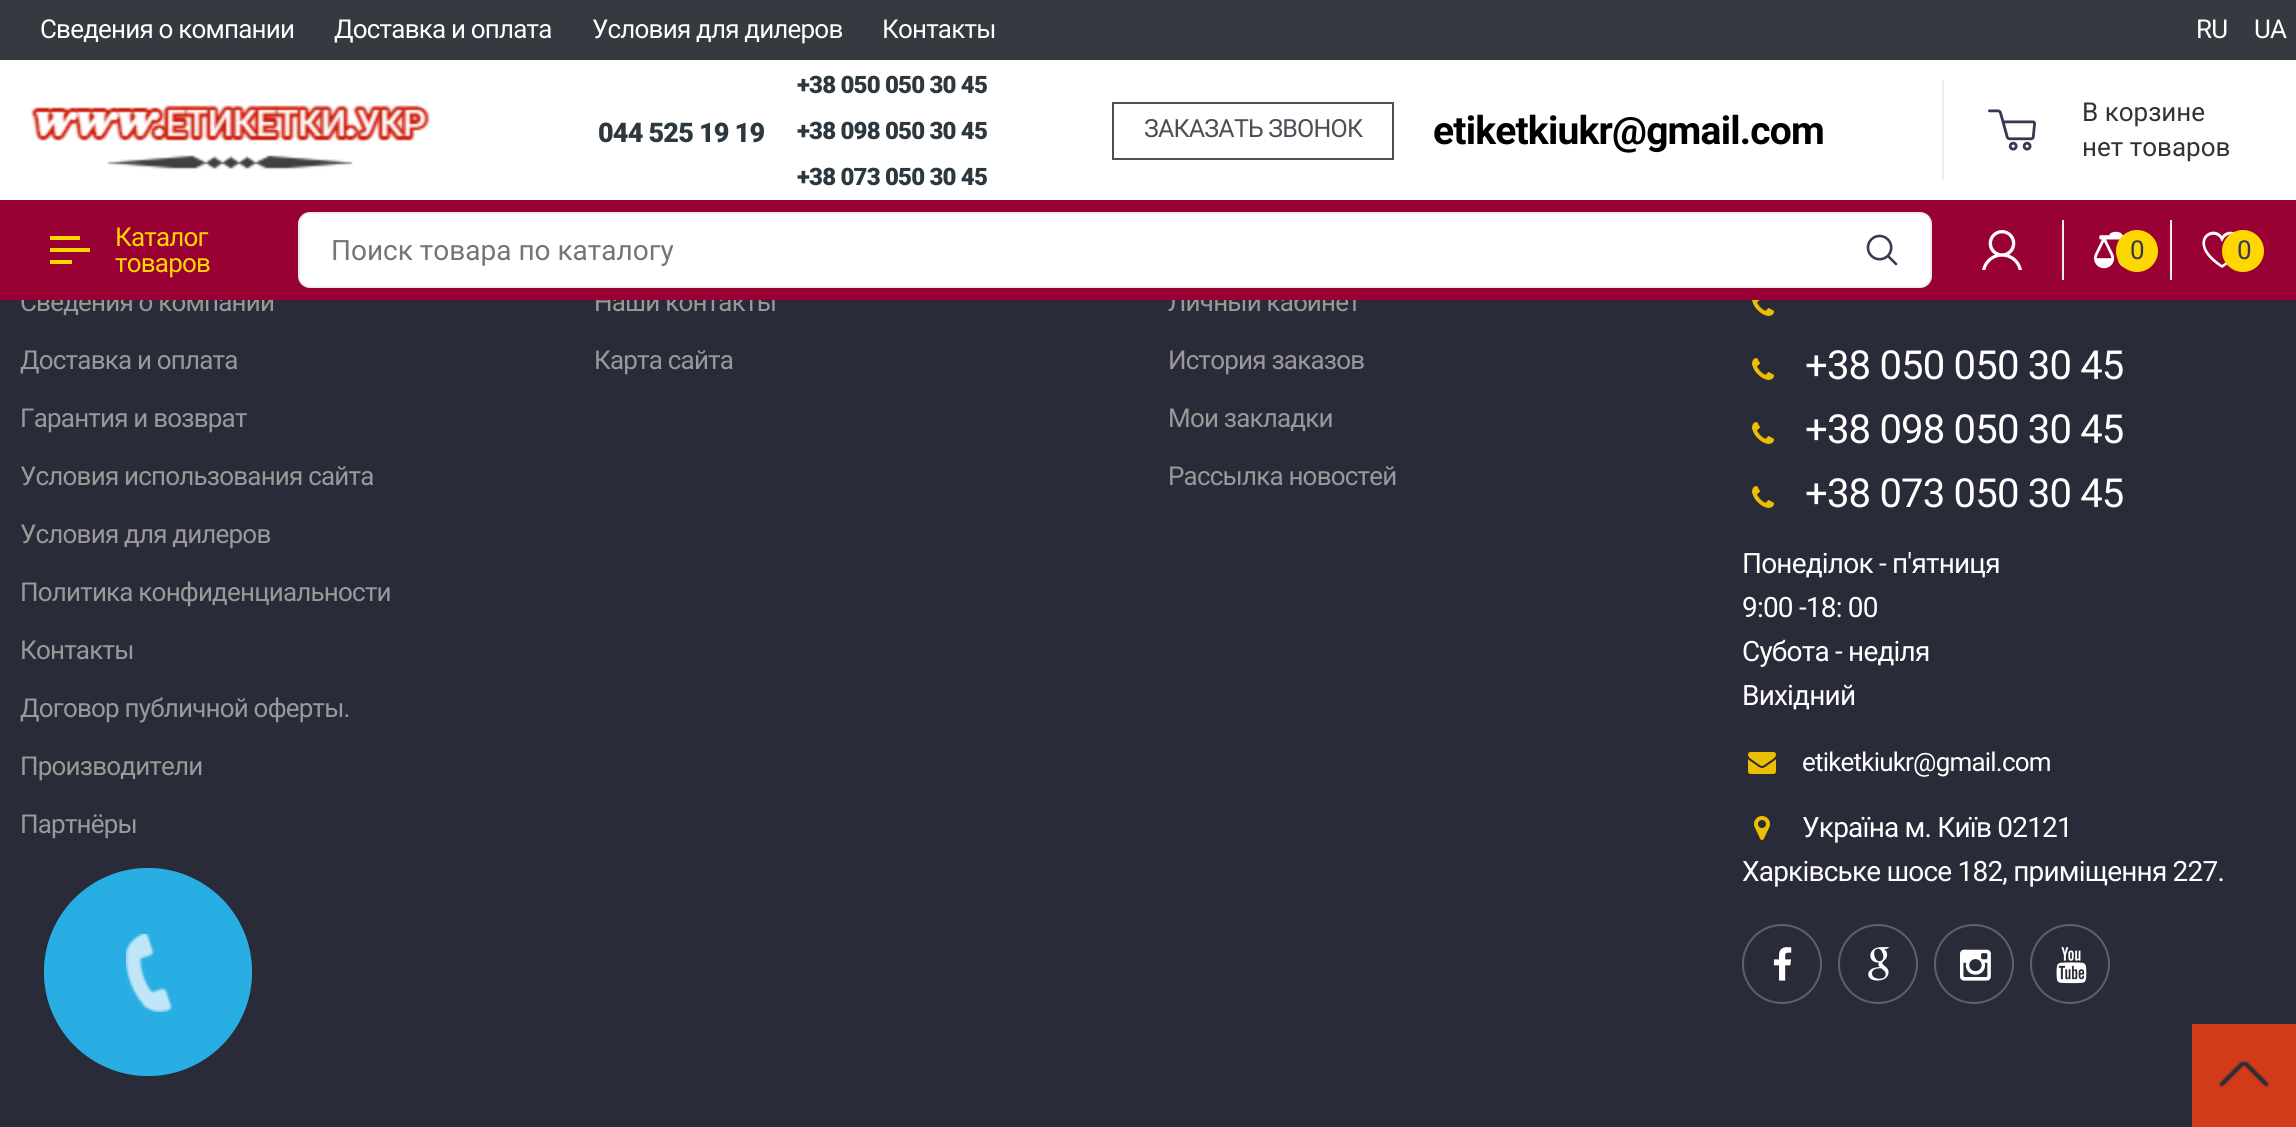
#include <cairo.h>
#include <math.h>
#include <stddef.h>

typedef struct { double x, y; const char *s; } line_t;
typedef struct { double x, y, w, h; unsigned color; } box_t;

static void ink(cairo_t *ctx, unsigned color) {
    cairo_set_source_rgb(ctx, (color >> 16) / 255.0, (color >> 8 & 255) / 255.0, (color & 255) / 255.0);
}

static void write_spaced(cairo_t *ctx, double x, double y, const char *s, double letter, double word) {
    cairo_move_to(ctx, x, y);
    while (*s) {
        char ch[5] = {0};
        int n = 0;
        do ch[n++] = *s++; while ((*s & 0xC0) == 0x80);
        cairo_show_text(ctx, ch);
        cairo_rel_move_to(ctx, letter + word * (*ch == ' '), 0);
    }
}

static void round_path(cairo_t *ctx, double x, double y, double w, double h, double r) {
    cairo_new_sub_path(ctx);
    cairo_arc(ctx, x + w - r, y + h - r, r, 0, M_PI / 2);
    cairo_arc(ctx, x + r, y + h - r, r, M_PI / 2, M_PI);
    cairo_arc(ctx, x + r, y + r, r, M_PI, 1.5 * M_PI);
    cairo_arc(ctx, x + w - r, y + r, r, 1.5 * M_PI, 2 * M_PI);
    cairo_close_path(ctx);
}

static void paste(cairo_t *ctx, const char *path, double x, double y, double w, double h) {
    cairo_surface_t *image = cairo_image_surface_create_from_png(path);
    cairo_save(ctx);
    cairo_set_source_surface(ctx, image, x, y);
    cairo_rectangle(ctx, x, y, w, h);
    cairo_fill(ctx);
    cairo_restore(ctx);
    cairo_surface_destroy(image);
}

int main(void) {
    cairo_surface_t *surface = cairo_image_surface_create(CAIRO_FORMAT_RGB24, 2296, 1127);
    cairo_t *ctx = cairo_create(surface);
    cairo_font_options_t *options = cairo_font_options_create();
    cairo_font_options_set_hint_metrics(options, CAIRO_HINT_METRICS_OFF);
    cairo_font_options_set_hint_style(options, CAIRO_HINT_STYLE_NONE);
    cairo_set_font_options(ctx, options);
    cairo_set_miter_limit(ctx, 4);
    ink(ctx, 0x292B39);
    cairo_paint(ctx);
    ink(ctx, 0xFFFFFF);
    cairo_rectangle(ctx, 0, 60, 2296, 140);
    cairo_fill(ctx);
    ink(ctx, 0x343A40);
    cairo_rectangle(ctx, 0, 0, 2296, 60);
    cairo_fill(ctx);
    cairo_select_font_face(ctx, "Roboto", CAIRO_FONT_SLANT_NORMAL, CAIRO_FONT_WEIGHT_NORMAL);
    cairo_set_font_size(ctx, 26);
    ink(ctx, 0xFFFFFF);
    {
        static const line_t items[] = {
            {40, 38, "Сведения о компании"},
            {334, 38, "Доставка и оплата"},
            {592, 38, "Условия для дилеров"},
            {882, 38, "Контакты"},
            {2196, 38, "RU"},
            {2254, 38, "UA"},
        };
        for (size_t i = 0; i < sizeof items / sizeof *items; i++) {
            write_spaced(ctx, items[i].x, items[i].y, items[i].s, -0.8, 0);
        }
    }
    paste(ctx, "media/1.png", 30, 105, 401, 65);
    cairo_select_font_face(ctx, "Roboto Black", CAIRO_FONT_SLANT_NORMAL, CAIRO_FONT_WEIGHT_NORMAL);
    cairo_set_font_size(ctx, 27);
    ink(ctx, 0x2C373E);
    write_spaced(ctx, 598, 142, "044 525 19 19", -0.8, 0);
    cairo_set_font_size(ctx, 24);
    {
        static const line_t items[] = {
            {797, 93, "+38 050 050 30 45"},
            {797, 139, "+38 098 050 30 45"},
            {797, 185, "+38 073 050 30 45"},
        };
        for (size_t i = 0; i < sizeof items / sizeof *items; i++) {
            write_spaced(ctx, items[i].x, items[i].y, items[i].s, -0.8, 0);
        }
    }
    cairo_rectangle(ctx, 1113, 103, 280, 56);
    ink(ctx, 0x495057);
    cairo_stroke(ctx);
    cairo_select_font_face(ctx, "Roboto", CAIRO_FONT_SLANT_NORMAL, CAIRO_FONT_WEIGHT_NORMAL);
    cairo_set_font_size(ctx, 25);
    write_spaced(ctx, 1144, 137, "ЗАКАЗАТЬ ЗВОНОК", -0.8, 0);
    cairo_select_font_face(ctx, "Roboto", CAIRO_FONT_SLANT_NORMAL, CAIRO_FONT_WEIGHT_BOLD);
    cairo_set_font_size(ctx, 39);
    ink(ctx, 0x000000);
    write_spaced(ctx, 1433, 144, "etiketkiukr@gmail.com", -0.8, 0);
    ink(ctx, 0xEDEDED);
    cairo_rectangle(ctx, 1942, 80, 2, 100);
    cairo_fill(ctx);
    paste(ctx, "media/2.png", 1988, 109, 48, 42);
    cairo_select_font_face(ctx, "Roboto", CAIRO_FONT_SLANT_NORMAL, CAIRO_FONT_WEIGHT_NORMAL);
    cairo_set_font_size(ctx, 26);
    ink(ctx, 0x333333);
    cairo_move_to(ctx, 2082, 121);
    cairo_show_text(ctx, "В корзине");
    cairo_move_to(ctx, 2082, 156);
    cairo_show_text(ctx, "нет товаров");
    ink(ctx, 0x999999);
    {
        static const line_t items[] = {
            {20, 311, "Сведения о компании"},
            {594, 311, "Наши контакты"},
            {1168, 311, "Личный кабинет"},
        };
        for (size_t i = 0; i < sizeof items / sizeof *items; i++) {
            write_spaced(ctx, items[i].x, items[i].y, items[i].s, -0.8, 0);
        }
    }
    {
        static const box_t items[] = {
            {0, 200, 2296, 100, 0x990033},
            {50, 248, 40, 4, 0xFFD700},
            {50, 236, 30, 4, 0xFFD700},
            {50, 260, 22, 4, 0xFFD700},
        };
        for (size_t i = 0; i < sizeof items / sizeof *items; i++) {
            ink(ctx, items[i].color);
            cairo_rectangle(ctx, items[i].x, items[i].y, items[i].w, items[i].h);
            cairo_fill(ctx);
        }
    }
    write_spaced(ctx, 115, 246, "Каталог", -0.8, 0);
    write_spaced(ctx, 115, 272, "товаров", -0.8, 0);
    ink(ctx, 0xFFFFFF);
    round_path(ctx, 299, 213, 1632, 74, 11);
    cairo_fill_preserve(ctx);
    ink(ctx, 0xEDEDED);
    cairo_stroke(ctx);
    cairo_set_font_size(ctx, 28);
    ink(ctx, 0x757575);
    cairo_move_to(ctx, 331, 260);
    cairo_show_text(ctx, "Поиск товара по каталогу");
    paste(ctx, "media/3.png", 1866, 234, 32, 32);
    paste(ctx, "media/4.png", 1982, 230, 40, 40);
    ink(ctx, 0xEDEDED);
    cairo_rectangle(ctx, 2062, 220, 2, 60);
    cairo_fill(ctx);
    paste(ctx, "media/5.png", 2094, 231, 33, 38);
    ink(ctx, 0xFFD700);
    cairo_arc(ctx, 2137, 251, 21, 0, 2 * M_PI);
    cairo_fill(ctx);
    cairo_set_font_size(ctx, 26);
    ink(ctx, 0x373952);
    write_spaced(ctx, 2130, 259, "0", -0.8, 0);
    ink(ctx, 0xEDEDED);
    cairo_rectangle(ctx, 2170, 220, 2, 60);
    cairo_fill(ctx);
    ink(ctx, 0xFFFFFF);
    cairo_new_path(ctx);
    cairo_move_to(ctx, 2241, 239);
    cairo_curve_to(ctx, 2238, 231, 2227, 229, 2222, 236);
    cairo_curve_to(ctx, 2211, 222, 2184, 244, 2222, 268);
    cairo_curve_to(ctx, 2230, 263, 2245, 251, 2241, 239);
    cairo_close_path(ctx);
    cairo_move_to(ctx, 2222, 265);
    cairo_curve_to(ctx, 2215, 260, 2205, 252, 2205, 243);
    cairo_curve_to(ctx, 2205, 236, 2213, 232, 2219, 237);
    cairo_curve_to(ctx, 2220, 238, 2221, 240, 2222, 242);
    cairo_curve_to(ctx, 2223, 240, 2224, 238, 2225, 237);
    cairo_curve_to(ctx, 2235, 228, 2252, 246, 2222, 265);
    cairo_close_path(ctx);
    cairo_fill(ctx);
    ink(ctx, 0xFFD700);
    cairo_arc(ctx, 2243, 251, 21, 0, 2 * M_PI);
    cairo_fill(ctx);
    ink(ctx, 0x373952);
    write_spaced(ctx, 2237, 259, "0", -0.8, 0);
    ink(ctx, 0x999999);
    {
        static const line_t items[] = {
            {20, 369, "Доставка и оплата"},
            {20, 427, "Гарантия и возврат"},
            {20, 485, "Условия использования сайта"},
            {20, 543, "Условия для дилеров"},
            {20, 601, "Политика конфиденциальности"},
            {20, 659, "Контакты"},
            {20, 717, "Договор публичной оферты."},
            {20, 775, "Производители"},
            {20, 833, "Партнёры"},
            {594, 369, "Карта сайта"},
            {1168, 369, "История заказов"},
            {1168, 427, "Мои закладки"},
            {1168, 485, "Рассылка новостей"},
        };
        for (size_t i = 0; i < sizeof items / sizeof *items; i++) {
            write_spaced(ctx, items[i].x, items[i].y, items[i].s, -0.8, 0);
        }
    }
    paste(ctx, "media/6.png", 1752, 300, 22, 16);
    paste(ctx, "media/7.png", 1752, 358, 22, 22);
    cairo_set_font_size(ctx, 40);
    ink(ctx, 0xFFFFFF);
    write_spaced(ctx, 1805, 379, "+38 050 050 30 45", -0.8, 0);
    paste(ctx, "media/7.png", 1752, 422, 22, 22);
    write_spaced(ctx, 1805, 443, "+38 098 050 30 45", -0.8, 0);
    paste(ctx, "media/7.png", 1752, 486, 22, 22);
    write_spaced(ctx, 1805, 507, "+38 073 050 30 45", -0.8, 0);
    cairo_set_font_size(ctx, 28);
    {
        static const line_t items[] = {
            {1742, 573, "Понеділок - п'ятниця"},
            {1742, 617, "9:00 -18: 00"},
            {1742, 661, "Субота - неділя"},
            {1742, 705, "Вихідний"},
        };
        for (size_t i = 0; i < sizeof items / sizeof *items; i++) {
            write_spaced(ctx, items[i].x, items[i].y, items[i].s, -0.8, 0);
        }
    }
    paste(ctx, "media/8.png", 1748, 752, 28, 22);
    cairo_set_font_size(ctx, 26);
    write_spaced(ctx, 1802, 771, "etiketkiukr@gmail.com", -0.8, 0);
    paste(ctx, "media/9.png", 1754, 816, 16, 24);
    cairo_set_font_size(ctx, 28);
    write_spaced(ctx, 1802, 837, "Україна м. Київ 02121", -0.8, 0);
    write_spaced(ctx, 1742, 881, "Харківське шосе 182, приміщення 227.", -0.8, 0);
    cairo_new_path(ctx);
    cairo_arc(ctx, 1782, 964, 39, 0, 2 * M_PI);
    ink(ctx, 0x58646C);
    cairo_stroke(ctx);
    paste(ctx, "media/10.png", 1773, 947, 19, 34);
    cairo_arc(ctx, 1878, 964, 39, 0, 2 * M_PI);
    cairo_stroke(ctx);
    paste(ctx, "media/11.png", 1868, 947, 22, 34);
    cairo_arc(ctx, 1974, 964, 39, 0, 2 * M_PI);
    cairo_stroke(ctx);
    paste(ctx, "media/12.png", 1960, 949, 31, 32);
    cairo_arc(ctx, 2070, 964, 39, 0, 2 * M_PI);
    cairo_stroke(ctx);
    paste(ctx, "media/13.png", 2056, 947, 31, 37);
    cairo_arc(ctx, 148, 972, 102, 0, 2 * M_PI);
    ink(ctx, 0x296D8E);
    cairo_set_line_width(ctx, 4);
    cairo_stroke(ctx);
    ink(ctx, 0x29AEE3);
    cairo_arc(ctx, 148, 972, 104, 0, 2 * M_PI);
    cairo_fill(ctx);
    paste(ctx, "media/14.png", 126, 934, 46, 78);
    paste(ctx, "media/15.png", 2192, 1024, 104, 103);
    cairo_surface_write_to_png(surface, "image.png");
    cairo_font_options_destroy(options);
    cairo_destroy(ctx);
    cairo_surface_destroy(surface);
    return 0;
}
